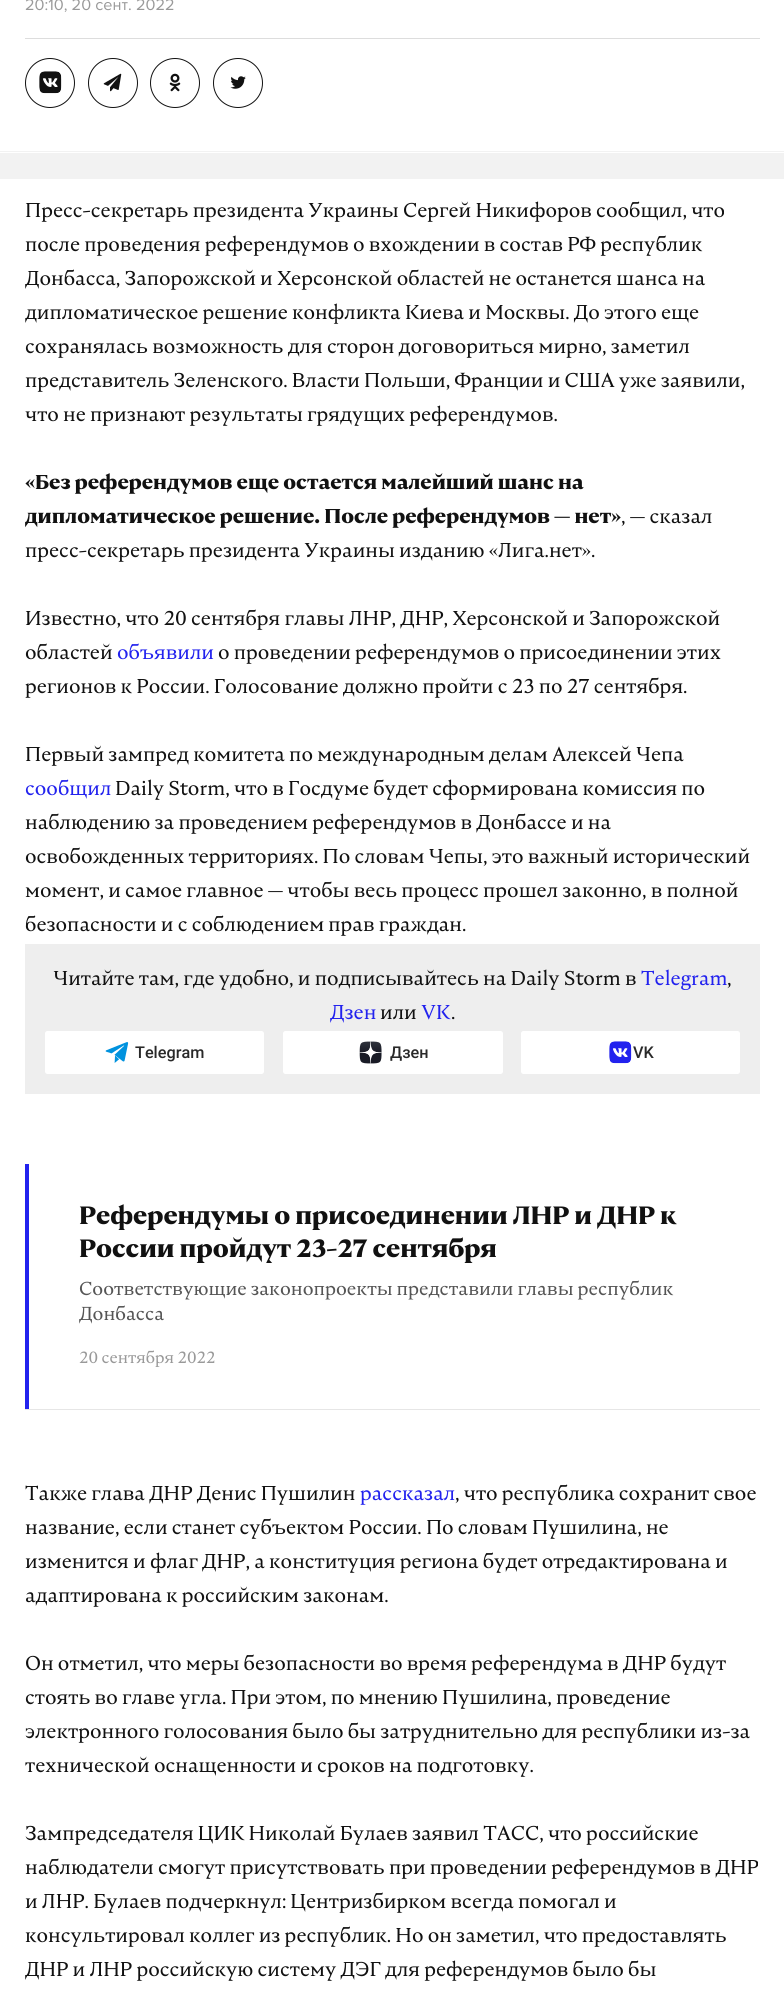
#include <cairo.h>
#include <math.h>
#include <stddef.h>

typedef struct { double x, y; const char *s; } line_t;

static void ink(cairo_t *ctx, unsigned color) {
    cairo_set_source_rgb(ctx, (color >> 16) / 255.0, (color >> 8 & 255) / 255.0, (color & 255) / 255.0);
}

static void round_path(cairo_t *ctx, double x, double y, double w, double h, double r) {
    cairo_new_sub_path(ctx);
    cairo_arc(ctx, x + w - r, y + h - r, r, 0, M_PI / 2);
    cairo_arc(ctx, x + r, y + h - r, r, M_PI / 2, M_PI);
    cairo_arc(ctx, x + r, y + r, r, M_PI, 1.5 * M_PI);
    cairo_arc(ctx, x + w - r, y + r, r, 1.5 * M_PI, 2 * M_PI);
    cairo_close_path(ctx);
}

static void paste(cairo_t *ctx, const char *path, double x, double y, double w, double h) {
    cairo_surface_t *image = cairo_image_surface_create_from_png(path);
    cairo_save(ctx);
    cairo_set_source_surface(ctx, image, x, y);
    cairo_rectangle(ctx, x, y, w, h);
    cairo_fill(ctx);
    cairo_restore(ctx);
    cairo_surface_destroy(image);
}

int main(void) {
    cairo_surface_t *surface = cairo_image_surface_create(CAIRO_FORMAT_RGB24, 784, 1992);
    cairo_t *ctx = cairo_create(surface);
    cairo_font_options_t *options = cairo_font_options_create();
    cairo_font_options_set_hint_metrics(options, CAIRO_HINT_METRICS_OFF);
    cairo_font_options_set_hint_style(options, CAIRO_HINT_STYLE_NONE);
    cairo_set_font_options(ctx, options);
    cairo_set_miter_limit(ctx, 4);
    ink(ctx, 0xF2F2F2);
    cairo_paint(ctx);
    ink(ctx, 0xFFFFFF);
    cairo_rectangle(ctx, 0, 0, 784, 153);
    cairo_fill(ctx);
    cairo_select_font_face(ctx, "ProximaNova", CAIRO_FONT_SLANT_NORMAL, CAIRO_FONT_WEIGHT_NORMAL);
    cairo_set_font_size(ctx, 16.25);
    ink(ctx, 0x999999);
    cairo_move_to(ctx, 25, 10);
    cairo_show_text(ctx, "20:10, 20 сент. 2022");
    ink(ctx, 0xDDDDDD);
    cairo_rectangle(ctx, 25, 38, 735, 1);
    cairo_fill(ctx);
    cairo_arc(ctx, 50, 83, 24.5, 0, 2 * M_PI);
    ink(ctx, 0x111111);
    cairo_set_line_width(ctx, 1);
    cairo_stroke(ctx);
    paste(ctx, "media/1.png", 39, 71, 23, 23);
    cairo_arc(ctx, 113, 83, 24.5, 0, 2 * M_PI);
    cairo_stroke(ctx);
    paste(ctx, "media/2.png", 103, 73, 19, 19);
    cairo_arc(ctx, 175, 83, 24.5, 0, 2 * M_PI);
    cairo_stroke(ctx);
    paste(ctx, "media/3.png", 169, 73, 12, 19);
    cairo_arc(ctx, 238, 83, 24.5, 0, 2 * M_PI);
    cairo_stroke(ctx);
    paste(ctx, "media/4.png", 230, 76, 16, 13);
    ink(ctx, 0xF2F2F2);
    cairo_rectangle(ctx, 0, 151, 784, 1);
    cairo_fill(ctx);
    ink(ctx, 0xFFFFFF);
    cairo_rectangle(ctx, 0, 179, 784, 1813);
    cairo_fill(ctx);
    cairo_select_font_face(ctx, "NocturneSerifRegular", CAIRO_FONT_SLANT_NORMAL, CAIRO_FONT_WEIGHT_NORMAL);
    cairo_set_font_size(ctx, 20);
    ink(ctx, 0x111111);
    {
        static const line_t items[] = {
            {25, 217, "Пресс-секретарь президента Украины Сергей Никифоров сообщил, что"},
            {25, 251, "после проведения референдумов о вхождении в состав РФ республик"},
            {25, 285, "Донбасса, Запорожской и Херсонской областей не останется шанса на"},
            {25, 319, "дипломатическое решение конфликта Киева и Москвы. До этого еще"},
            {25, 353, "сохранялась возможность для сторон договориться мирно, заметил"},
            {25, 387, "представитель Зеленского. Власти Польши, Франции и США уже заявили,"},
            {25, 421, "что не признают результаты грядущих референдумов."},
        };
        for (size_t i = 0; i < sizeof items / sizeof *items; i++) {
            cairo_move_to(ctx, items[i].x, items[i].y);
            cairo_show_text(ctx, items[i].s);
        }
    }
    cairo_select_font_face(ctx, "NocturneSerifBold", CAIRO_FONT_SLANT_NORMAL, CAIRO_FONT_WEIGHT_NORMAL);
    cairo_move_to(ctx, 25, 489);
    cairo_show_text(ctx, "«Без референдумов еще остается малейший шанс на");
    cairo_move_to(ctx, 25, 523);
    cairo_show_text(ctx, "дипломатическое решение. После референдумов — нет»");
    cairo_select_font_face(ctx, "NocturneSerifRegular", CAIRO_FONT_SLANT_NORMAL, CAIRO_FONT_WEIGHT_NORMAL);
    {
        static const line_t items[] = {
            {621, 523, ", — сказал"},
            {25, 557, "пресс-секретарь президента Украины изданию «Лига.нет»."},
            {25, 625, "Известно, что 20 сентября главы ЛНР, ДНР, Херсонской и Запорожской"},
            {25, 659, "областей"},
        };
        for (size_t i = 0; i < sizeof items / sizeof *items; i++) {
            cairo_move_to(ctx, items[i].x, items[i].y);
            cairo_show_text(ctx, items[i].s);
        }
    }
    ink(ctx, 0x2222EE);
    cairo_move_to(ctx, 117, 659);
    cairo_show_text(ctx, "объявили");
    ink(ctx, 0x111111);
    {
        static const line_t items[] = {
            {218, 659, "о проведении референдумов о присоединении этих"},
            {25, 693, "регионов к России. Голосование должно пройти с 23 по 27 сентября."},
            {25, 761, "Первый зампред комитета по международным делам Алексей Чепа"},
        };
        for (size_t i = 0; i < sizeof items / sizeof *items; i++) {
            cairo_move_to(ctx, items[i].x, items[i].y);
            cairo_show_text(ctx, items[i].s);
        }
    }
    ink(ctx, 0x2222EE);
    cairo_move_to(ctx, 25, 795);
    cairo_show_text(ctx, "сообщил");
    ink(ctx, 0x111111);
    {
        static const line_t items[] = {
            {115, 795, "Daily Storm, что в Госдуме будет сформирована комиссия по"},
            {25, 829, "наблюдению за проведением референдумов в Донбассе и на"},
            {25, 863, "освобожденных территориях. По словам Чепы, это важный исторический"},
            {25, 897, "момент, и самое главное — чтобы весь процесс прошел законно, в полной"},
            {25, 931, "безопасности и с соблюдением прав граждан."},
        };
        for (size_t i = 0; i < sizeof items / sizeof *items; i++) {
            cairo_move_to(ctx, items[i].x, items[i].y);
            cairo_show_text(ctx, items[i].s);
        }
    }
    ink(ctx, 0xEEEEEE);
    cairo_rectangle(ctx, 25, 944, 735, 150);
    cairo_fill(ctx);
    ink(ctx, 0x111111);
    cairo_move_to(ctx, 53, 985);
    cairo_show_text(ctx, "Читайте там, где удобно, и подписывайтесь на Daily Storm в");
    ink(ctx, 0x2222EE);
    cairo_move_to(ctx, 641, 985);
    cairo_show_text(ctx, "Telegram");
    ink(ctx, 0x111111);
    cairo_move_to(ctx, 727, 985);
    cairo_show_text(ctx, ",");
    ink(ctx, 0x2222EE);
    cairo_move_to(ctx, 330, 1019);
    cairo_show_text(ctx, "Дзен");
    ink(ctx, 0x111111);
    cairo_move_to(ctx, 380, 1019);
    cairo_show_text(ctx, "или");
    cairo_move_to(ctx, 451, 1019);
    cairo_show_text(ctx, ".");
    ink(ctx, 0x2222EE);
    cairo_move_to(ctx, 421, 1019);
    cairo_show_text(ctx, "VK");
    ink(ctx, 0xFFFFFF);
    round_path(ctx, 45, 1031, 219, 43, 2.5);
    cairo_fill(ctx);
    paste(ctx, "media/5.png", 105, 1042, 24, 21);
    cairo_select_font_face(ctx, "Roboto Medium", CAIRO_FONT_SLANT_NORMAL, CAIRO_FONT_WEIGHT_NORMAL);
    cairo_set_font_size(ctx, 16.25);
    ink(ctx, 0x292929);
    cairo_move_to(ctx, 135, 1058);
    cairo_show_text(ctx, "Telegram");
    ink(ctx, 0xFFFFFF);
    round_path(ctx, 283, 1031, 220, 43, 2.5);
    cairo_fill(ctx);
    paste(ctx, "media/6.png", 359, 1041, 23, 23);
    ink(ctx, 0x292929);
    cairo_move_to(ctx, 390, 1058);
    cairo_show_text(ctx, "Дзен");
    ink(ctx, 0xFFFFFF);
    round_path(ctx, 521, 1031, 219, 43, 2.5);
    cairo_fill(ctx);
    paste(ctx, "media/7.png", 609, 1041, 23, 23);
    ink(ctx, 0x292929);
    cairo_move_to(ctx, 633, 1058);
    cairo_show_text(ctx, "VK");
    ink(ctx, 0xE6E6E6);
    cairo_rectangle(ctx, 25, 1409, 735, 1);
    cairo_fill(ctx);
    ink(ctx, 0x2222EE);
    cairo_rectangle(ctx, 25, 1164, 4, 245);
    cairo_fill(ctx);
    cairo_select_font_face(ctx, "NocturneSerifBold", CAIRO_FONT_SLANT_NORMAL, CAIRO_FONT_WEIGHT_NORMAL);
    cairo_set_font_size(ctx, 25);
    ink(ctx, 0x111111);
    cairo_move_to(ctx, 79, 1224);
    cairo_show_text(ctx, "Референдумы о присоединении ЛНР и ДНР к");
    cairo_move_to(ctx, 79, 1257);
    cairo_show_text(ctx, "России пройдут 23-27 сентября");
    cairo_select_font_face(ctx, "NocturneSerifRegular", CAIRO_FONT_SLANT_NORMAL, CAIRO_FONT_WEIGHT_NORMAL);
    cairo_set_font_size(ctx, 18.75);
    ink(ctx, 0x555555);
    cairo_move_to(ctx, 79, 1295);
    cairo_show_text(ctx, "Соответствующие законопроекты представили главы республик");
    cairo_move_to(ctx, 79, 1320);
    cairo_show_text(ctx, "Донбасса");
    cairo_set_font_size(ctx, 16.25);
    ink(ctx, 0x999999);
    cairo_move_to(ctx, 79, 1363);
    cairo_show_text(ctx, "20 сентября 2022");
    cairo_set_font_size(ctx, 20);
    ink(ctx, 0x111111);
    cairo_move_to(ctx, 25, 1500);
    cairo_show_text(ctx, "Также глава ДНР Денис Пушилин");
    ink(ctx, 0x2222EE);
    cairo_move_to(ctx, 360, 1500);
    cairo_show_text(ctx, "рассказал");
    ink(ctx, 0x111111);
    {
        static const line_t items[] = {
            {455, 1500, ", что республика сохранит свое"},
            {25, 1534, "название, если станет субъектом России. По словам Пушилина, не"},
            {25, 1568, "изменится и флаг ДНР, а конституция региона будет отредактирована и"},
            {25, 1602, "адаптирована к российским законам."},
            {25, 1670, "Он отметил, что меры безопасности во время референдума в ДНР будут"},
            {25, 1704, "стоять во главе угла. При этом, по мнению Пушилина, проведение"},
            {25, 1738, "электронного голосования было бы затруднительно для республики из-за"},
            {25, 1772, "технической оснащенности и сроков на подготовку."},
            {25, 1840, "Зампредседателя ЦИК Николай Булаев заявил ТАСС, что российские"},
            {25, 1874, "наблюдатели смогут присутствовать при проведении референдумов в ДНР"},
            {25, 1908, "и ЛНР. Булаев подчеркнул: Центризбирком всегда помогал и"},
            {25, 1942, "консультировал коллег из республик. Но он заметил, что предоставлять"},
            {25, 1976, "ДНР и ЛНР российскую систему ДЭГ для референдумов было бы"},
        };
        for (size_t i = 0; i < sizeof items / sizeof *items; i++) {
            cairo_move_to(ctx, items[i].x, items[i].y);
            cairo_show_text(ctx, items[i].s);
        }
    }
    cairo_surface_write_to_png(surface, "image.png");
    cairo_font_options_destroy(options);
    cairo_destroy(ctx);
    cairo_surface_destroy(surface);
    return 0;
}
